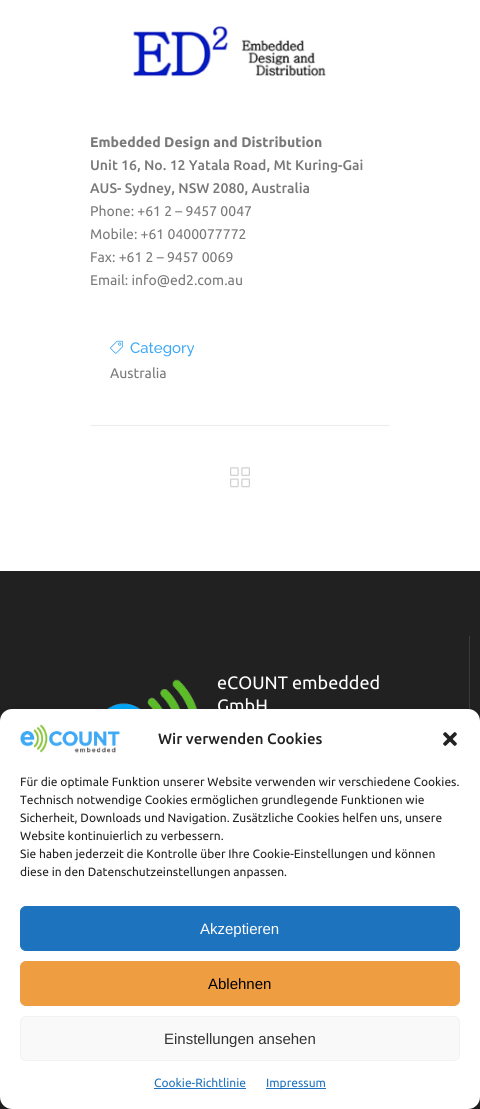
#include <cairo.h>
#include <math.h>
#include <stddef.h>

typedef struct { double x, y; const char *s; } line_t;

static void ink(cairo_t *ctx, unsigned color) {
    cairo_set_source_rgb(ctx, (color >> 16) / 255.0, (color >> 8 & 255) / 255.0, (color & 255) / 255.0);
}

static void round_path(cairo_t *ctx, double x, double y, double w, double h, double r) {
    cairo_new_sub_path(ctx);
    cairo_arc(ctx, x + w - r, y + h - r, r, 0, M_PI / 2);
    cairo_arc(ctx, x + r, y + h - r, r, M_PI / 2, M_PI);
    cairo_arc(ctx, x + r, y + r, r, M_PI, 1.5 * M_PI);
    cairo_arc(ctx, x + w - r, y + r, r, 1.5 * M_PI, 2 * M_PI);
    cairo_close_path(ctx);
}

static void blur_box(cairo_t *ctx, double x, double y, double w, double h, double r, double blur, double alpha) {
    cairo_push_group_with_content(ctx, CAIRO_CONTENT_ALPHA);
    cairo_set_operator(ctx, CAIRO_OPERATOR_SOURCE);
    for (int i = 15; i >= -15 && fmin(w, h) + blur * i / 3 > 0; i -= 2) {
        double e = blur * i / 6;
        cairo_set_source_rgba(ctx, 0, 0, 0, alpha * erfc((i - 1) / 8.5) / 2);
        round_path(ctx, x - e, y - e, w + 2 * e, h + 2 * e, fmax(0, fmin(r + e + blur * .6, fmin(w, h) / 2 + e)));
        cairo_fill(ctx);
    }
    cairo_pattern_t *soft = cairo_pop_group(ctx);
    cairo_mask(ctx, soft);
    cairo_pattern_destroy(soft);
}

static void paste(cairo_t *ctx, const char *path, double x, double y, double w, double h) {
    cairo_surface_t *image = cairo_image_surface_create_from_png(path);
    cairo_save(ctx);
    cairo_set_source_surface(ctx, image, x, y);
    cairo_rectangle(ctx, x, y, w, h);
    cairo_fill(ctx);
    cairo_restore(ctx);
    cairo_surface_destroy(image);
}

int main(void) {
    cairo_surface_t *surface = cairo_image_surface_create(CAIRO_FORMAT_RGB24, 480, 1109);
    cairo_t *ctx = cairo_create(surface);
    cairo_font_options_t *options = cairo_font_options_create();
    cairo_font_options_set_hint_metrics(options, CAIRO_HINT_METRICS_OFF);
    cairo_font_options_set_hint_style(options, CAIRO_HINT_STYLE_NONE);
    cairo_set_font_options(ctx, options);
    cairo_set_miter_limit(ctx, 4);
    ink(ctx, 0xFFFFFF);
    cairo_paint(ctx);
    paste(ctx, "media/1.png", 133, 26, 193, 51);
    cairo_select_font_face(ctx, "Ubuntu", CAIRO_FONT_SLANT_NORMAL, CAIRO_FONT_WEIGHT_BOLD);
    cairo_set_font_size(ctx, 14);
    ink(ctx, 0x797979);
    cairo_move_to(ctx, 90, 147);
    cairo_show_text(ctx, "Embedded Design and Distribution");
    cairo_select_font_face(ctx, "Ubuntu Medium", CAIRO_FONT_SLANT_NORMAL, CAIRO_FONT_WEIGHT_NORMAL);
    cairo_move_to(ctx, 90, 170);
    cairo_show_text(ctx, "Unit 16, No. 12 Yatala Road, Mt Kuring-Gai");
    cairo_move_to(ctx, 90, 193);
    cairo_show_text(ctx, "AUS- Sydney, NSW 2080, Australia");
    cairo_select_font_face(ctx, "Ubuntu", CAIRO_FONT_SLANT_NORMAL, CAIRO_FONT_WEIGHT_NORMAL);
    {
        static const line_t items[] = {
            {90, 216, "Phone: +61 2 – 9457 0047"},
            {90, 239, "Mobile: +61 0400077772"},
            {90, 262, "Fax: +61 2 – 9457 0069"},
            {90, 285, "Email: info@ed2.com.au"},
        };
        for (size_t i = 0; i < sizeof items / sizeof *items; i++) {
            cairo_move_to(ctx, items[i].x, items[i].y);
            cairo_show_text(ctx, items[i].s);
        }
    }
    paste(ctx, "media/2.png", 110, 340, 13, 14);
    cairo_select_font_face(ctx, "Raleway Medium", CAIRO_FONT_SLANT_NORMAL, CAIRO_FONT_WEIGHT_NORMAL);
    cairo_set_font_size(ctx, 15);
    ink(ctx, 0x3FA9F5);
    cairo_move_to(ctx, 130, 353);
    cairo_show_text(ctx, "Category");
    cairo_select_font_face(ctx, "Ubuntu", CAIRO_FONT_SLANT_NORMAL, CAIRO_FONT_WEIGHT_NORMAL);
    cairo_set_font_size(ctx, 14);
    ink(ctx, 0x797979);
    cairo_move_to(ctx, 110, 378);
    cairo_show_text(ctx, "Australia");
    ink(ctx, 0xECECEC);
    cairo_rectangle(ctx, 90, 425, 300, 1);
    cairo_fill(ctx);
    paste(ctx, "media/3.png", 230, 467, 20, 21);
    ink(ctx, 0x212121);
    cairo_rectangle(ctx, 0, 571, 480, 538);
    cairo_fill(ctx);
    ink(ctx, 0x3B3B3B);
    cairo_rectangle(ctx, 469, 636, 1, 74);
    cairo_fill(ctx);
    paste(ctx, "media/4.png", 107, 679, 91, 30);
    cairo_set_font_size(ctx, 18);
    ink(ctx, 0xFFFFFF);
    cairo_move_to(ctx, 217, 689);
    cairo_show_text(ctx, "eCOUNT embedded");
    cairo_move_to(ctx, 217, 712);
    cairo_show_text(ctx, "GmbH");
    ink(ctx, 0x000000);
    blur_box(ctx, 0, 719, 480, 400, 12, 10, 0.19);
    ink(ctx, 0xFFFFFF);
    round_path(ctx, 0, 709, 480, 400, 12);
    cairo_fill(ctx);
    paste(ctx, "media/5.png", 20, 724, 100, 29);
    cairo_select_font_face(ctx, "Ubuntu Medium", CAIRO_FONT_SLANT_NORMAL, CAIRO_FONT_WEIGHT_NORMAL);
    cairo_set_font_size(ctx, 15);
    ink(ctx, 0x222222);
    cairo_move_to(ctx, 158, 744);
    cairo_show_text(ctx, "Wir verwenden Cookies");
    paste(ctx, "media/6.png", 443, 732, 14, 14);
    cairo_select_font_face(ctx, "Ubuntu", CAIRO_FONT_SLANT_NORMAL, CAIRO_FONT_WEIGHT_NORMAL);
    cairo_set_font_size(ctx, 12);
    {
        static const line_t items[] = {
            {20, 786, "Für die optimale Funktion unserer Website verwenden wir verschiedene Cookies."},
            {20, 804, "Technisch notwendige Cookies ermöglichen grundlegende Funktionen wie"},
            {20, 822, "Sicherheit, Downloads und Navigation. Zusätzliche Cookies helfen uns, unsere"},
            {20, 840, "Website kontinuierlich zu verbessern."},
            {20, 858, "Sie haben jederzeit die Kontrolle über Ihre Cookie-Einstellungen und können"},
            {20, 876, "diese in den Datenschutzeinstellungen anpassen."},
        };
        for (size_t i = 0; i < sizeof items / sizeof *items; i++) {
            cairo_move_to(ctx, items[i].x, items[i].y);
            cairo_show_text(ctx, items[i].s);
        }
    }
    ink(ctx, 0x1E73BE);
    round_path(ctx, 20.5, 906.5, 439, 44, 5.5);
    cairo_fill_preserve(ctx);
    cairo_set_line_width(ctx, 1);
    cairo_stroke(ctx);
    cairo_select_font_face(ctx, "Liberation Sans", CAIRO_FONT_SLANT_NORMAL, CAIRO_FONT_WEIGHT_NORMAL);
    cairo_set_font_size(ctx, 15);
    ink(ctx, 0xFFFFFF);
    cairo_move_to(ctx, 200, 934);
    cairo_show_text(ctx, "Akzeptieren");
    ink(ctx, 0xEF9D41);
    round_path(ctx, 20.5, 961.5, 439, 44, 5.5);
    cairo_fill_preserve(ctx);
    cairo_stroke(ctx);
    ink(ctx, 0x000000);
    cairo_move_to(ctx, 208, 989);
    cairo_show_text(ctx, "Ablehnen");
    ink(ctx, 0xF9F9F9);
    round_path(ctx, 20.5, 1016.5, 439, 44, 5.5);
    cairo_fill_preserve(ctx);
    ink(ctx, 0xF2F2F2);
    cairo_stroke(ctx);
    ink(ctx, 0x333333);
    cairo_move_to(ctx, 164, 1044);
    cairo_show_text(ctx, "Einstellungen ansehen");
    cairo_select_font_face(ctx, "Ubuntu", CAIRO_FONT_SLANT_NORMAL, CAIRO_FONT_WEIGHT_NORMAL);
    cairo_set_font_size(ctx, 12);
    ink(ctx, 0x1E73BE);
    cairo_move_to(ctx, 154, 1087);
    cairo_show_text(ctx, "Cookie-Richtlinie");
    cairo_rectangle(ctx, 154, 1088, 92, 1);
    cairo_fill(ctx);
    cairo_rectangle(ctx, 266, 1088, 60, 1);
    cairo_fill(ctx);
    cairo_move_to(ctx, 266, 1087);
    cairo_show_text(ctx, "Impressum");
    cairo_surface_write_to_png(surface, "image.png");
    cairo_font_options_destroy(options);
    cairo_destroy(ctx);
    cairo_surface_destroy(surface);
    return 0;
}
